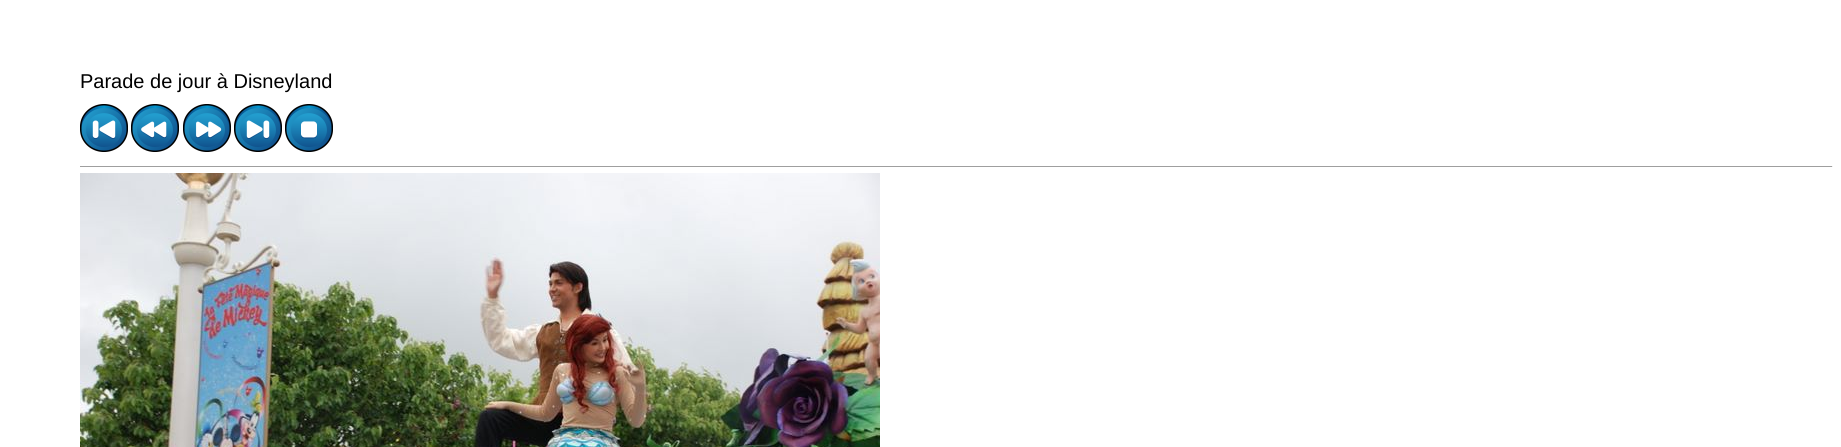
#include <cairo.h>
#include <math.h>
#include <stddef.h>


static void ink(cairo_t *ctx, unsigned color) {
    cairo_set_source_rgb(ctx, (color >> 16) / 255.0, (color >> 8 & 255) / 255.0, (color & 255) / 255.0);
}

static void paste(cairo_t *ctx, const char *path, double x, double y, double w, double h) {
    cairo_surface_t *image = cairo_image_surface_create_from_png(path);
    cairo_save(ctx);
    cairo_set_source_surface(ctx, image, x, y);
    cairo_rectangle(ctx, x, y, w, h);
    cairo_fill(ctx);
    cairo_restore(ctx);
    cairo_surface_destroy(image);
}

int main(void) {
    cairo_surface_t *surface = cairo_image_surface_create(CAIRO_FORMAT_RGB24, 1841, 447);
    cairo_t *ctx = cairo_create(surface);
    cairo_font_options_t *options = cairo_font_options_create();
    cairo_font_options_set_hint_metrics(options, CAIRO_HINT_METRICS_OFF);
    cairo_font_options_set_hint_style(options, CAIRO_HINT_STYLE_NONE);
    cairo_set_font_options(ctx, options);
    cairo_set_miter_limit(ctx, 4);
    ink(ctx, 0xFFFFFF);
    cairo_paint(ctx);
    cairo_select_font_face(ctx, "Liberation Sans", CAIRO_FONT_SLANT_NORMAL, CAIRO_FONT_WEIGHT_NORMAL);
    cairo_set_font_size(ctx, 20);
    ink(ctx, 0x000000);
    cairo_move_to(ctx, 80, 88);
    cairo_show_text(ctx, "Parade de jour à Disneyland");
    paste(ctx, "media/1.png", 80, 104, 48, 48);
    paste(ctx, "media/2.png", 131, 104, 48, 48);
    paste(ctx, "media/3.png", 183, 104, 48, 48);
    paste(ctx, "media/4.png", 234, 104, 48, 48);
    paste(ctx, "media/5.png", 285, 104, 48, 48);
    ink(ctx, 0x9F9F9F);
    cairo_rectangle(ctx, 80, 166, 1753, 1);
    cairo_fill(ctx);
    ink(ctx, 0xEEEEEE);
    cairo_rectangle(ctx, 1832, 166, 1, 1);
    cairo_fill(ctx);
    paste(ctx, "media/6.png", 80, 173, 800, 274);
    cairo_surface_write_to_png(surface, "image.png");
    cairo_font_options_destroy(options);
    cairo_destroy(ctx);
    cairo_surface_destroy(surface);
    return 0;
}
